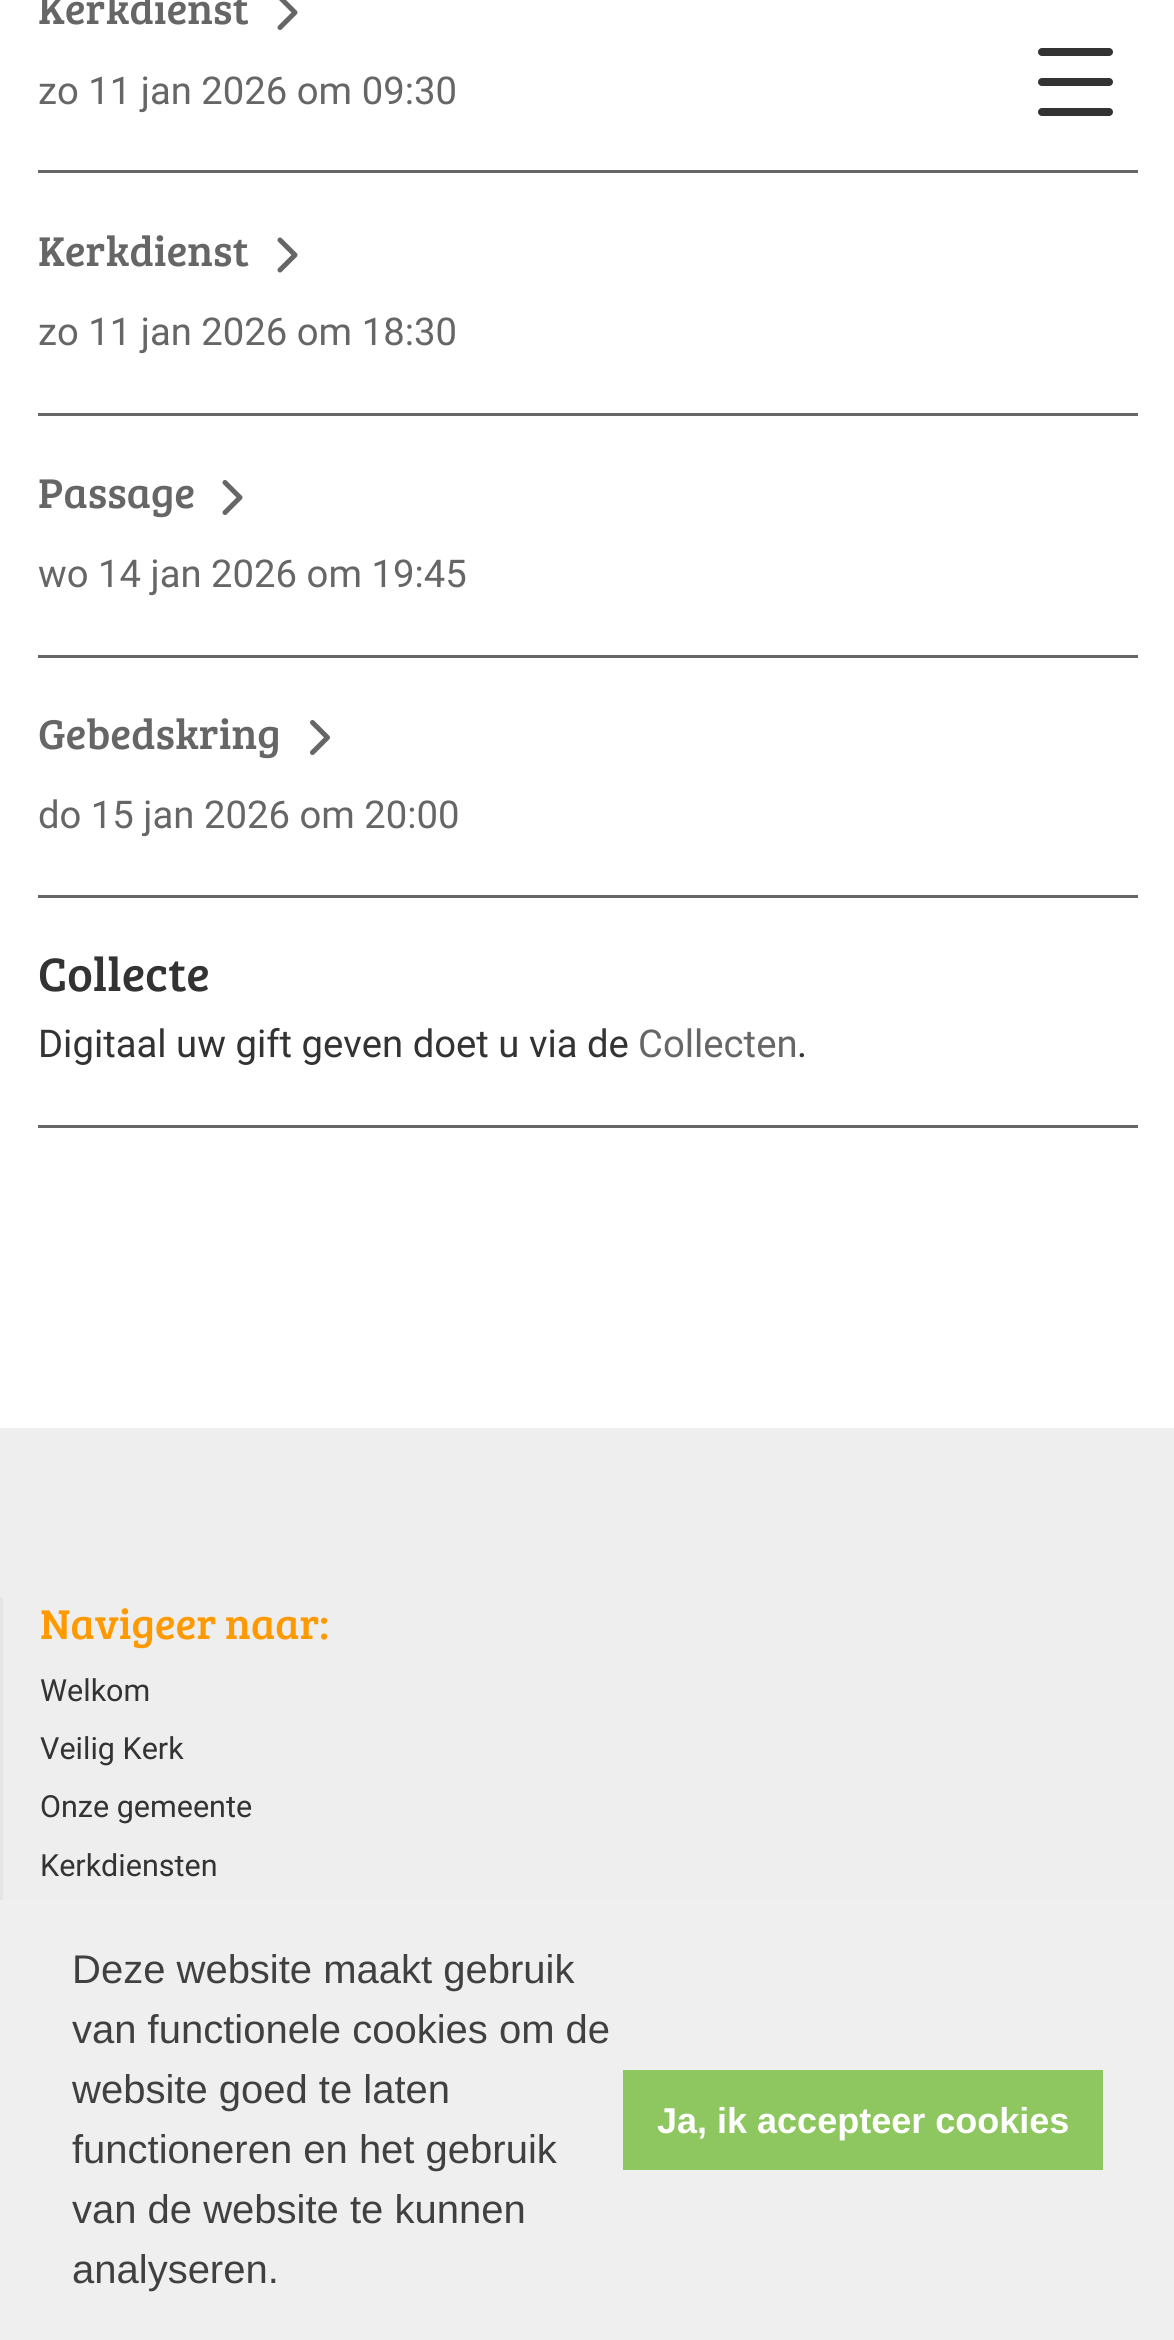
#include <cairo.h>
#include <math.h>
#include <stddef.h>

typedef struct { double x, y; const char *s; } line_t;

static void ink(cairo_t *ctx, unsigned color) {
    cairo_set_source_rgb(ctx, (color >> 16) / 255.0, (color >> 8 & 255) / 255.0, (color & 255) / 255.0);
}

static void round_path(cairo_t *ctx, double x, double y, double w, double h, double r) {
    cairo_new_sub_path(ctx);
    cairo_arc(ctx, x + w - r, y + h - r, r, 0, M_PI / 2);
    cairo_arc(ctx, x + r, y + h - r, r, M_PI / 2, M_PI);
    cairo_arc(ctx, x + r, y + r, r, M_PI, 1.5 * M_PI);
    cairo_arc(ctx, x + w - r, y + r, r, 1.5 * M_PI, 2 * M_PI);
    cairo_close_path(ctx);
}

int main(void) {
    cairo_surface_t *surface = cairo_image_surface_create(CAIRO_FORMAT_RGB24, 1174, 2340);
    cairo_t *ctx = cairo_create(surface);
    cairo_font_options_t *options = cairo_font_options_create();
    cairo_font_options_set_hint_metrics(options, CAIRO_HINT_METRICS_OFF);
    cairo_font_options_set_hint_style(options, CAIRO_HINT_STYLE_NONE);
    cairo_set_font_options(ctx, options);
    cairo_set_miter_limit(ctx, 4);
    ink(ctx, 0xFFFFFF);
    cairo_paint(ctx);
    ink(ctx, 0x666666);
    cairo_rectangle(ctx, 38, 170, 1100, 3);
    cairo_fill(ctx);
    cairo_select_font_face(ctx, "Bree Serif", CAIRO_FONT_SLANT_NORMAL, CAIRO_FONT_WEIGHT_NORMAL);
    cairo_set_font_size(ctx, 43);
    cairo_move_to(ctx, 38, 24);
    cairo_show_text(ctx, "Kerkdienst");
    cairo_new_path(ctx);
    cairo_move_to(ctx, 280, 27.5);
    cairo_line_to(ctx, 295, 12.5);
    cairo_line_to(ctx, 280, -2.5);
    cairo_set_line_width(ctx, 5);
    cairo_set_line_cap(ctx, CAIRO_LINE_CAP_ROUND);
    cairo_set_line_join(ctx, CAIRO_LINE_JOIN_ROUND);
    cairo_stroke(ctx);
    cairo_select_font_face(ctx, "Roboto", CAIRO_FONT_SLANT_NORMAL, CAIRO_FONT_WEIGHT_NORMAL);
    cairo_set_font_size(ctx, 38.25);
    cairo_move_to(ctx, 38, 104);
    cairo_show_text(ctx, "zo 11 jan 2026 om 09:30");
    cairo_rectangle(ctx, 38, 413, 1100, 3);
    cairo_fill(ctx);
    cairo_select_font_face(ctx, "Bree Serif", CAIRO_FONT_SLANT_NORMAL, CAIRO_FONT_WEIGHT_NORMAL);
    cairo_set_font_size(ctx, 43);
    cairo_move_to(ctx, 38, 266);
    cairo_show_text(ctx, "Kerkdienst");
    cairo_new_path(ctx);
    cairo_move_to(ctx, 280, 270);
    cairo_line_to(ctx, 295, 255);
    cairo_line_to(ctx, 280, 240);
    cairo_stroke(ctx);
    cairo_select_font_face(ctx, "Roboto", CAIRO_FONT_SLANT_NORMAL, CAIRO_FONT_WEIGHT_NORMAL);
    cairo_set_font_size(ctx, 38.25);
    cairo_move_to(ctx, 38, 345);
    cairo_show_text(ctx, "zo 11 jan 2026 om 18:30");
    cairo_rectangle(ctx, 38, 655, 1100, 3);
    cairo_fill(ctx);
    cairo_select_font_face(ctx, "Bree Serif", CAIRO_FONT_SLANT_NORMAL, CAIRO_FONT_WEIGHT_NORMAL);
    cairo_set_font_size(ctx, 43);
    cairo_move_to(ctx, 38, 508);
    cairo_show_text(ctx, "Passage");
    cairo_new_path(ctx);
    cairo_move_to(ctx, 225, 512.5);
    cairo_line_to(ctx, 240, 497.5);
    cairo_line_to(ctx, 225, 482.5);
    cairo_stroke(ctx);
    cairo_select_font_face(ctx, "Roboto", CAIRO_FONT_SLANT_NORMAL, CAIRO_FONT_WEIGHT_NORMAL);
    cairo_set_font_size(ctx, 38.25);
    cairo_move_to(ctx, 38, 587);
    cairo_show_text(ctx, "wo 14 jan 2026 om 19:45");
    cairo_rectangle(ctx, 38, 895, 1100, 3);
    cairo_fill(ctx);
    cairo_select_font_face(ctx, "Bree Serif", CAIRO_FONT_SLANT_NORMAL, CAIRO_FONT_WEIGHT_NORMAL);
    cairo_set_font_size(ctx, 43);
    cairo_move_to(ctx, 38, 749);
    cairo_show_text(ctx, "Gebedskring");
    cairo_new_path(ctx);
    cairo_move_to(ctx, 312.5, 752.5);
    cairo_line_to(ctx, 327.5, 737.5);
    cairo_line_to(ctx, 312.5, 722.5);
    cairo_stroke(ctx);
    cairo_select_font_face(ctx, "Roboto", CAIRO_FONT_SLANT_NORMAL, CAIRO_FONT_WEIGHT_NORMAL);
    cairo_set_font_size(ctx, 38.25);
    cairo_move_to(ctx, 38, 828);
    cairo_show_text(ctx, "do 15 jan 2026 om 20:00");
    cairo_rectangle(ctx, 38, 1125, 1100, 3);
    cairo_fill(ctx);
    cairo_select_font_face(ctx, "Bree Serif", CAIRO_FONT_SLANT_NORMAL, CAIRO_FONT_WEIGHT_NORMAL);
    cairo_set_font_size(ctx, 48.5);
    ink(ctx, 0x333333);
    cairo_move_to(ctx, 38, 991);
    cairo_show_text(ctx, "Collecte");
    cairo_select_font_face(ctx, "Roboto", CAIRO_FONT_SLANT_NORMAL, CAIRO_FONT_WEIGHT_NORMAL);
    cairo_set_font_size(ctx, 38.25);
    cairo_move_to(ctx, 38, 1057);
    cairo_show_text(ctx, "Digitaal uw gift geven doet u via de");
    ink(ctx, 0x666666);
    cairo_move_to(ctx, 638, 1057);
    cairo_show_text(ctx, "Collecten");
    ink(ctx, 0x333333);
    cairo_move_to(ctx, 797, 1057);
    cairo_show_text(ctx, ".");
    round_path(ctx, 1038, 48, 75, 8, 4);
    cairo_fill(ctx);
    round_path(ctx, 1038, 78, 75, 8, 4);
    cairo_fill(ctx);
    round_path(ctx, 1038, 108, 75, 8, 4);
    cairo_fill(ctx);
    ink(ctx, 0xEEEEEE);
    cairo_rectangle(ctx, 0, 1428, 1174, 472);
    cairo_fill(ctx);
    ink(ctx, 0xE6E5E5);
    cairo_rectangle(ctx, 0, 1598, 3, 302);
    cairo_fill(ctx);
    cairo_select_font_face(ctx, "Bree Serif", CAIRO_FONT_SLANT_NORMAL, CAIRO_FONT_WEIGHT_NORMAL);
    cairo_set_font_size(ctx, 43);
    ink(ctx, 0xFF9900);
    cairo_move_to(ctx, 40, 1639);
    cairo_show_text(ctx, "Navigeer naar:");
    cairo_select_font_face(ctx, "Roboto", CAIRO_FONT_SLANT_NORMAL, CAIRO_FONT_WEIGHT_NORMAL);
    cairo_set_font_size(ctx, 30.5);
    ink(ctx, 0x333333);
    {
        static const line_t items[] = {
            {40, 1701, "Welkom"},
            {40, 1759, "Veilig Kerk"},
            {40, 1817, "Onze gemeente"},
            {40, 1876, "Kerkdiensten"},
        };
        for (size_t i = 0; i < sizeof items / sizeof *items; i++) {
            cairo_move_to(ctx, items[i].x, items[i].y);
            cairo_show_text(ctx, items[i].s);
        }
    }
    ink(ctx, 0xEFEFEF);
    cairo_rectangle(ctx, 0, 1900, 1174, 440);
    cairo_fill(ctx);
    cairo_select_font_face(ctx, "Liberation Sans", CAIRO_FONT_SLANT_NORMAL, CAIRO_FONT_WEIGHT_NORMAL);
    cairo_set_font_size(ctx, 40);
    ink(ctx, 0x404040);
    {
        static const line_t items[] = {
            {72, 1983, "Deze website maakt gebruik"},
            {72, 2043, "van functionele cookies om de"},
            {72, 2103, "website goed te laten"},
            {72, 2163, "functioneren en het gebruik"},
            {72, 2223, "van de website te kunnen"},
            {72, 2283, "analyseren."},
        };
        for (size_t i = 0; i < sizeof items / sizeof *items; i++) {
            cairo_move_to(ctx, items[i].x, items[i].y);
            cairo_show_text(ctx, items[i].s);
        }
    }
    ink(ctx, 0x8EC760);
    cairo_rectangle(ctx, 623, 2070, 480, 100);
    cairo_fill(ctx);
    cairo_select_font_face(ctx, "Liberation Sans", CAIRO_FONT_SLANT_NORMAL, CAIRO_FONT_WEIGHT_BOLD);
    cairo_set_font_size(ctx, 36);
    ink(ctx, 0xFFFFFF);
    cairo_move_to(ctx, 657, 2133);
    cairo_show_text(ctx, "Ja, ik accepteer cookies");
    cairo_surface_write_to_png(surface, "image.png");
    cairo_font_options_destroy(options);
    cairo_destroy(ctx);
    cairo_surface_destroy(surface);
    return 0;
}
